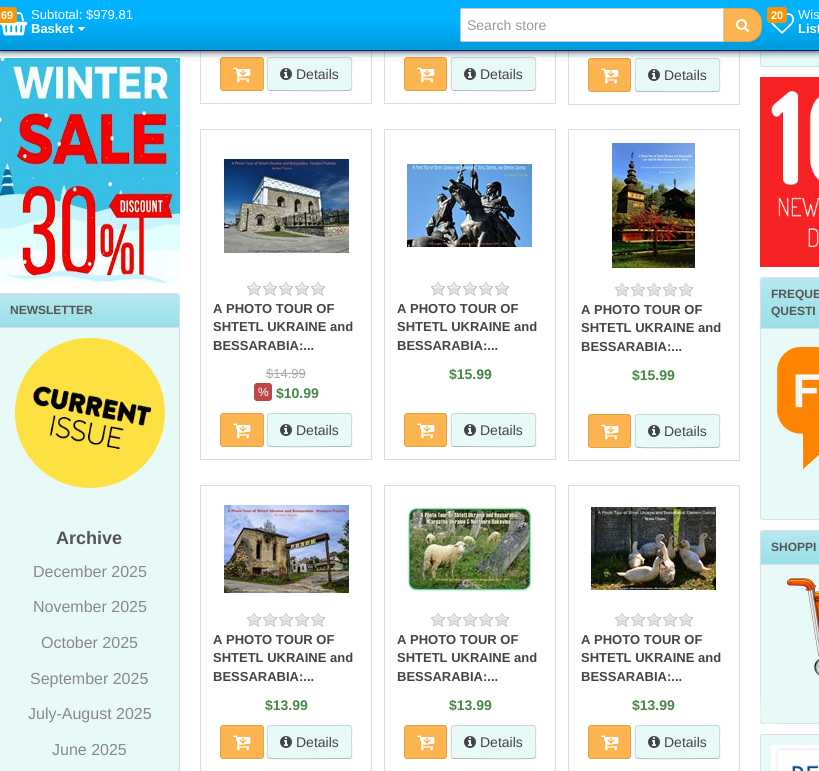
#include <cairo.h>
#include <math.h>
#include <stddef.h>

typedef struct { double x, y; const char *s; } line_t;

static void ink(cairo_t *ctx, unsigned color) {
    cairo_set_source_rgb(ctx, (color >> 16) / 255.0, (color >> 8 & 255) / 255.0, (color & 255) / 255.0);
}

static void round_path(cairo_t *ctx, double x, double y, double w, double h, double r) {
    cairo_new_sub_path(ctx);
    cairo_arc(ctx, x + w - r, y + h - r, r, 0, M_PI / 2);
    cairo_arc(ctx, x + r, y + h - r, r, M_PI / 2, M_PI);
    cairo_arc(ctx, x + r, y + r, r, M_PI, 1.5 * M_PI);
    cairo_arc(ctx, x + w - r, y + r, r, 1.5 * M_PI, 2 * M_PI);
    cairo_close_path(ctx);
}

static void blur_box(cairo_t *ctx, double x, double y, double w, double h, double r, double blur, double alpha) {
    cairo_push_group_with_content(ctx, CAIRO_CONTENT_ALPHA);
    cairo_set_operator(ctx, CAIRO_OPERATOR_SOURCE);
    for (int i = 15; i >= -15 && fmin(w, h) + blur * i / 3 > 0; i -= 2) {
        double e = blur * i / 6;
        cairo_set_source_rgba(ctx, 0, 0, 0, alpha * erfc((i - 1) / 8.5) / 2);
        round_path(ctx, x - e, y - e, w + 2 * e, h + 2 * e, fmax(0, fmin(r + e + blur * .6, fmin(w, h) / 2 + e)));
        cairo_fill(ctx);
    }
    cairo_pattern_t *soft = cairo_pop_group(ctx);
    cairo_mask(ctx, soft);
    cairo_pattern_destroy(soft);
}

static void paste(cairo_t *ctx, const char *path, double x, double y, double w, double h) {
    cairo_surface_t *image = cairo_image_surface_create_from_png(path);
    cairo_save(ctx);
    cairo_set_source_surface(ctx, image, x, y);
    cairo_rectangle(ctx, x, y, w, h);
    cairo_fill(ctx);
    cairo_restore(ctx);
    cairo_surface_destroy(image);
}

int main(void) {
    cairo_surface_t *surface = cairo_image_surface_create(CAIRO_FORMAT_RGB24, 819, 771);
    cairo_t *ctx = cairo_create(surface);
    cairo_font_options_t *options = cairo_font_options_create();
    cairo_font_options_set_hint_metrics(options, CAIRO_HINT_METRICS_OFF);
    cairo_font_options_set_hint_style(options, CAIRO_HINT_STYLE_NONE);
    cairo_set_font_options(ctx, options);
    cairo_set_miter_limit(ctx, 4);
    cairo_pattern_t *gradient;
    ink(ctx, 0xFFFFFF);
    cairo_paint(ctx);
    paste(ctx, "media/5.png", 0, 58, 180, 225);
    cairo_rectangle(ctx, 200.5, -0.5, 171, 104);
    ink(ctx, 0xDDDDDD);
    cairo_set_line_width(ctx, 1);
    cairo_stroke(ctx);
    ink(ctx, 0xFBB450);
    round_path(ctx, 220, 57, 44, 34, 3);
    cairo_fill(ctx);
    round_path(ctx, 220.5, 57.5, 43, 33, 2.5);
    cairo_set_source_rgba(ctx, 0, 0, 0, 0.1);
    cairo_stroke(ctx);
    ink(ctx, 0xE8FAF8);
    round_path(ctx, 267, 57, 85, 34, 3);
    cairo_fill(ctx);
    cairo_new_path(ctx);
    cairo_move_to(ctx, 351, 90);
    cairo_line_to(ctx, 350.5, 90);
    cairo_curve_to(ctx, 348.5, 91.5, 290.5, 90.5, 283, 90.5);
    cairo_line_to(ctx, 270, 90.5);
    cairo_line_to(ctx, 268, 90);
    cairo_set_source_rgba(ctx, 0, 0, 0, 0.25);
    cairo_stroke(ctx);
    cairo_new_path(ctx);
    cairo_move_to(ctx, 268, 90);
    cairo_curve_to(ctx, 266.5, 88, 267.5, 76.5, 267.5, 74);
    cairo_curve_to(ctx, 267.5, 54.5, 263.5, 57.5, 283, 57.5);
    cairo_line_to(ctx, 336, 57.5);
    cairo_curve_to(ctx, 355.5, 57.5, 351.5, 54.5, 351.5, 74);
    cairo_curve_to(ctx, 351.5, 76.5, 352.5, 88, 351, 90);
    cairo_set_source_rgba(ctx, 0, 0, 0, 0.15);
    cairo_stroke(ctx);
    cairo_rectangle(ctx, 384.5, -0.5, 171, 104);
    ink(ctx, 0xDDDDDD);
    cairo_stroke(ctx);
    ink(ctx, 0xFBB450);
    round_path(ctx, 404, 57, 43, 34, 3);
    cairo_fill(ctx);
    round_path(ctx, 404.5, 57.5, 42, 33, 2.5);
    cairo_set_source_rgba(ctx, 0, 0, 0, 0.1);
    cairo_stroke(ctx);
    ink(ctx, 0xE8FAF8);
    round_path(ctx, 451, 57, 85, 34, 3);
    cairo_fill(ctx);
    cairo_new_path(ctx);
    cairo_move_to(ctx, 535, 90);
    cairo_line_to(ctx, 534.5, 90);
    cairo_curve_to(ctx, 532.5, 91.5, 474.5, 90.5, 467, 90.5);
    cairo_line_to(ctx, 454, 90.5);
    cairo_line_to(ctx, 452, 90);
    cairo_set_source_rgba(ctx, 0, 0, 0, 0.25);
    cairo_stroke(ctx);
    cairo_new_path(ctx);
    cairo_move_to(ctx, 452, 90);
    cairo_curve_to(ctx, 450.5, 88, 451.5, 76.5, 451.5, 74);
    cairo_curve_to(ctx, 451.5, 54.5, 447.5, 57.5, 467, 57.5);
    cairo_line_to(ctx, 520, 57.5);
    cairo_curve_to(ctx, 539.5, 57.5, 535.5, 54.5, 535.5, 74);
    cairo_curve_to(ctx, 535.5, 76.5, 536.5, 88, 535, 90);
    cairo_set_source_rgba(ctx, 0, 0, 0, 0.15);
    cairo_stroke(ctx);
    cairo_rectangle(ctx, 568.5, -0.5, 171, 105);
    ink(ctx, 0xDDDDDD);
    cairo_stroke(ctx);
    ink(ctx, 0xFBB450);
    round_path(ctx, 588, 58, 43, 34, 3);
    cairo_fill(ctx);
    round_path(ctx, 588.5, 58.5, 42, 33, 2.5);
    cairo_set_source_rgba(ctx, 0, 0, 0, 0.1);
    cairo_stroke(ctx);
    ink(ctx, 0xE8FAF8);
    round_path(ctx, 635, 58, 85, 34, 3);
    cairo_fill(ctx);
    cairo_new_path(ctx);
    cairo_move_to(ctx, 719, 91);
    cairo_line_to(ctx, 718.5, 91);
    cairo_curve_to(ctx, 716.5, 92.5, 658.5, 91.5, 651, 91.5);
    cairo_line_to(ctx, 638, 91.5);
    cairo_line_to(ctx, 636, 91);
    cairo_set_source_rgba(ctx, 0, 0, 0, 0.25);
    cairo_stroke(ctx);
    cairo_new_path(ctx);
    cairo_move_to(ctx, 636, 91);
    cairo_curve_to(ctx, 634.5, 89, 635.5, 77.5, 635.5, 75);
    cairo_curve_to(ctx, 635.5, 55.5, 631.5, 58.5, 651, 58.5);
    cairo_line_to(ctx, 704, 58.5);
    cairo_curve_to(ctx, 723.5, 58.5, 719.5, 55.5, 719.5, 75);
    cairo_curve_to(ctx, 719.5, 77.5, 720.5, 89, 719, 91);
    cairo_set_source_rgba(ctx, 0, 0, 0, 0.15);
    cairo_stroke(ctx);
    ink(ctx, 0xE8FAF8);
    cairo_new_path(ctx);
    cairo_move_to(ctx, 763, -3);
    cairo_line_to(ctx, 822, -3);
    cairo_line_to(ctx, 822, 67);
    cairo_line_to(ctx, 763, 67);
    cairo_curve_to(ctx, 761.5, 67, 760, 65.5, 760, 64);
    cairo_line_to(ctx, 760, 0);
    cairo_curve_to(ctx, 760, -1.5, 761.5, -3, 763, -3);
    cairo_close_path(ctx);
    cairo_fill(ctx);
    ink(ctx, 0xD6E0E6);
    cairo_set_fill_rule(ctx, CAIRO_FILL_RULE_EVEN_ODD);
    cairo_new_path(ctx);
    cairo_move_to(ctx, 763, -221);
    cairo_line_to(ctx, 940, -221);
    cairo_line_to(ctx, 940, 67);
    cairo_line_to(ctx, 763, 67);
    cairo_curve_to(ctx, 761, 67, 760, 66, 760, 64);
    cairo_line_to(ctx, 760, -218);
    cairo_curve_to(ctx, 760, -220, 761, -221, 763, -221);
    cairo_close_path(ctx);
    cairo_move_to(ctx, 763, -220);
    cairo_line_to(ctx, 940, -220);
    cairo_line_to(ctx, 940, 66);
    cairo_line_to(ctx, 763, 66);
    cairo_curve_to(ctx, 762, 66, 761, 65, 761, 64);
    cairo_line_to(ctx, 761, -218);
    cairo_curve_to(ctx, 761, -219, 762, -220, 763, -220);
    cairo_close_path(ctx);
    cairo_fill(ctx);
    ink(ctx, 0x002245);
    blur_box(ctx, 0, 0, 819, 51, 0, 4, 1);
    gradient = cairo_pattern_create_linear(410, 0, 410, 50);
    cairo_pattern_add_color_stop_rgba(gradient, 0, 0, 0.698, 1, 1);
    cairo_pattern_add_color_stop_rgba(gradient, 0.4, 0, 0.698, 1, 1);
    cairo_pattern_add_color_stop_rgba(gradient, 1, 0, 0.6, 0.859, 1);
    cairo_set_source(ctx, gradient);
    cairo_pattern_destroy(gradient);
    cairo_rectangle(ctx, 0, 0, 819, 50);
    cairo_fill(ctx);
    ink(ctx, 0x002245);
    cairo_rectangle(ctx, 0, 50, 819, 1);
    cairo_fill(ctx);
    paste(ctx, "media/1.png", 0, 12, 28, 24);
    ink(ctx, 0xF89406);
    round_path(ctx, -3, 7, 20, 16, 3);
    cairo_fill(ctx);
    cairo_select_font_face(ctx, "Liberation Sans", CAIRO_FONT_SLANT_NORMAL, CAIRO_FONT_WEIGHT_BOLD);
    cairo_set_font_size(ctx, 11);
    ink(ctx, 0xFFFFFF);
    cairo_move_to(ctx, 1, 19);
    cairo_show_text(ctx, "69");
    cairo_select_font_face(ctx, "Liberation Sans", CAIRO_FONT_SLANT_NORMAL, CAIRO_FONT_WEIGHT_NORMAL);
    cairo_set_font_size(ctx, 13);
    cairo_move_to(ctx, 31, 19);
    cairo_show_text(ctx, "Subtotal: $979.81");
    cairo_select_font_face(ctx, "Liberation Sans", CAIRO_FONT_SLANT_NORMAL, CAIRO_FONT_WEIGHT_BOLD);
    cairo_move_to(ctx, 31, 33);
    cairo_show_text(ctx, "Basket");
    paste(ctx, "media/2.png", 78, 27, 7, 4);
    ink(ctx, 0xFBB450);
    cairo_new_path(ctx);
    cairo_move_to(ctx, 723, 8);
    cairo_line_to(ctx, 748, 8);
    cairo_curve_to(ctx, 755.5, 8, 762, 14.5, 762, 22);
    cairo_line_to(ctx, 762, 28);
    cairo_curve_to(ctx, 762, 35.5, 755.5, 42, 748, 42);
    cairo_line_to(ctx, 723, 42);
    cairo_close_path(ctx);
    cairo_fill(ctx);
    cairo_new_path(ctx);
    cairo_move_to(ctx, 723.5, 8.5);
    cairo_line_to(ctx, 748, 8.5);
    cairo_curve_to(ctx, 755.5, 8.5, 761.5, 14.5, 761.5, 22);
    cairo_line_to(ctx, 761.5, 28);
    cairo_curve_to(ctx, 761.5, 35.5, 755.5, 41.5, 748, 41.5);
    cairo_line_to(ctx, 723.5, 41.5);
    cairo_close_path(ctx);
    cairo_set_source_rgba(ctx, 0, 0, 0, 0.1);
    cairo_stroke(ctx);
    ink(ctx, 0xFFFFFF);
    cairo_new_path(ctx);
    cairo_move_to(ctx, 462, 8.5);
    cairo_line_to(ctx, 723.5, 8.5);
    cairo_line_to(ctx, 723.5, 41.5);
    cairo_line_to(ctx, 462, 41.5);
    cairo_curve_to(ctx, 461, 41.5, 460.5, 41, 460.5, 40);
    cairo_line_to(ctx, 460.5, 10);
    cairo_curve_to(ctx, 460.5, 9, 461, 8.5, 462, 8.5);
    cairo_close_path(ctx);
    cairo_fill_preserve(ctx);
    ink(ctx, 0xCCCCCC);
    cairo_stroke(ctx);
    cairo_select_font_face(ctx, "Liberation Sans", CAIRO_FONT_SLANT_NORMAL, CAIRO_FONT_WEIGHT_NORMAL);
    cairo_set_font_size(ctx, 14);
    ink(ctx, 0x999999);
    cairo_move_to(ctx, 467, 30);
    cairo_show_text(ctx, "Search store");
    paste(ctx, "media/3.png", 736, 19, 13, 13);
    paste(ctx, "media/4.png", 771, 13, 23, 21);
    ink(ctx, 0xF89406);
    round_path(ctx, 767, 7, 20, 16, 3);
    cairo_fill(ctx);
    cairo_select_font_face(ctx, "Liberation Sans", CAIRO_FONT_SLANT_NORMAL, CAIRO_FONT_WEIGHT_BOLD);
    cairo_set_font_size(ctx, 11);
    ink(ctx, 0xFFFFFF);
    cairo_move_to(ctx, 771, 19);
    cairo_show_text(ctx, "20");
    cairo_select_font_face(ctx, "Liberation Sans", CAIRO_FONT_SLANT_NORMAL, CAIRO_FONT_WEIGHT_NORMAL);
    cairo_set_font_size(ctx, 13);
    cairo_move_to(ctx, 798, 19);
    cairo_show_text(ctx, "Wis");
    cairo_select_font_face(ctx, "Liberation Sans", CAIRO_FONT_SLANT_NORMAL, CAIRO_FONT_WEIGHT_BOLD);
    cairo_move_to(ctx, 798, 33);
    cairo_show_text(ctx, "List");
    ink(ctx, 0xE8FAF8);
    cairo_new_path(ctx);
    cairo_move_to(ctx, 0, 293);
    cairo_line_to(ctx, 177, 293);
    cairo_curve_to(ctx, 178.5, 293, 180, 294.5, 180, 296);
    cairo_line_to(ctx, 180, 771);
    cairo_curve_to(ctx, 180, 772.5, 178.5, 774, 177, 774);
    cairo_line_to(ctx, 0, 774);
    cairo_close_path(ctx);
    cairo_fill(ctx);
    ink(ctx, 0xD6E0E6);
    cairo_new_path(ctx);
    cairo_move_to(ctx, 0, 293);
    cairo_line_to(ctx, 177, 293);
    cairo_curve_to(ctx, 179, 293, 180, 294, 180, 296);
    cairo_line_to(ctx, 180, 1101);
    cairo_curve_to(ctx, 180, 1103, 179, 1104, 177, 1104);
    cairo_line_to(ctx, 0, 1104);
    cairo_close_path(ctx);
    cairo_move_to(ctx, 0, 294);
    cairo_line_to(ctx, 177, 294);
    cairo_curve_to(ctx, 178, 294, 179, 295, 179, 296);
    cairo_line_to(ctx, 179, 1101);
    cairo_curve_to(ctx, 179, 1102, 178, 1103, 177, 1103);
    cairo_line_to(ctx, 0, 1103);
    cairo_close_path(ctx);
    cairo_fill(ctx);
    gradient = cairo_pattern_create_linear(90, 294, 90, 327);
    cairo_pattern_add_color_stop_rgba(gradient, 0, 0.714, 0.91, 0.937, 1);
    cairo_pattern_add_color_stop_rgba(gradient, 1, 0.6, 0.875, 0.91, 1);
    cairo_set_source(ctx, gradient);
    cairo_pattern_destroy(gradient);
    cairo_new_path(ctx);
    cairo_move_to(ctx, 0, 294);
    cairo_line_to(ctx, 176, 294);
    cairo_curve_to(ctx, 177.5, 294, 179, 295.5, 179, 297);
    cairo_line_to(ctx, 179, 327);
    cairo_line_to(ctx, 0, 327);
    cairo_close_path(ctx);
    cairo_fill(ctx);
    ink(ctx, 0xD6E0E6);
    cairo_rectangle(ctx, 0, 327, 179, 1);
    cairo_fill(ctx);
    cairo_set_font_size(ctx, 12);
    ink(ctx, 0x555555);
    cairo_move_to(ctx, 10, 314);
    cairo_show_text(ctx, "NEWSLETTER");
    paste(ctx, "media/6.png", 15, 338, 150, 150);
    cairo_set_font_size(ctx, 18);
    cairo_move_to(ctx, 56, 544);
    cairo_show_text(ctx, "Archive");
    cairo_select_font_face(ctx, "Liberation Sans", CAIRO_FONT_SLANT_NORMAL, CAIRO_FONT_WEIGHT_NORMAL);
    cairo_set_font_size(ctx, 16);
    ink(ctx, 0x888888);
    {
        static const line_t items[] = {
            {33, 577, "December 2025"},
            {33, 612, "November 2025"},
            {41, 648, "October 2025"},
            {30, 684, "September 2025"},
            {28, 719, "July-August 2025"},
            {52, 755, "June 2025"},
        };
        for (size_t i = 0; i < sizeof items / sizeof *items; i++) {
            cairo_move_to(ctx, items[i].x, items[i].y);
            cairo_show_text(ctx, items[i].s);
        }
    }
    paste(ctx, "media/7.png", 233, 67, 18, 16);
    paste(ctx, "media/8.png", 280, 68, 12, 12);
    cairo_set_font_size(ctx, 14);
    ink(ctx, 0x444444);
    cairo_move_to(ctx, 296, 79);
    cairo_show_text(ctx, "Details");
    paste(ctx, "media/7.png", 417, 67, 18, 16);
    paste(ctx, "media/8.png", 464, 68, 12, 12);
    cairo_move_to(ctx, 480, 79);
    cairo_show_text(ctx, "Details");
    paste(ctx, "media/7.png", 601, 68, 18, 16);
    paste(ctx, "media/8.png", 648, 69, 12, 12);
    cairo_move_to(ctx, 664, 80);
    cairo_show_text(ctx, "Details");
    cairo_rectangle(ctx, 200.5, 129.5, 171, 330);
    ink(ctx, 0xDDDDDD);
    cairo_stroke(ctx);
    paste(ctx, "media/9.png", 224, 159, 125, 94);
    paste(ctx, "media/10.png", 246, 281, 80, 15);
    cairo_select_font_face(ctx, "Liberation Sans", CAIRO_FONT_SLANT_NORMAL, CAIRO_FONT_WEIGHT_BOLD);
    cairo_set_font_size(ctx, 13);
    ink(ctx, 0x444444);
    {
        static const line_t items[] = {
            {213, 313, "A PHOTO TOUR OF"},
            {213, 331, "SHTETL UKRAINE and"},
            {213, 350, "BESSARABIA:..."},
        };
        for (size_t i = 0; i < sizeof items / sizeof *items; i++) {
            cairo_move_to(ctx, items[i].x, items[i].y);
            cairo_show_text(ctx, items[i].s);
        }
    }
    cairo_select_font_face(ctx, "Liberation Sans", CAIRO_FONT_SLANT_NORMAL, CAIRO_FONT_WEIGHT_NORMAL);
    ink(ctx, 0xAAAAAA);
    cairo_move_to(ctx, 266, 378);
    cairo_show_text(ctx, "$14.99");
    cairo_rectangle(ctx, 266, 373, 40, 1);
    cairo_fill(ctx);
    ink(ctx, 0xB94A48);
    round_path(ctx, 254, 383, 18, 18, 3);
    cairo_fill(ctx);
    cairo_set_font_size(ctx, 12);
    ink(ctx, 0xFFFFFF);
    cairo_move_to(ctx, 258, 396);
    cairo_show_text(ctx, "%");
    cairo_select_font_face(ctx, "Liberation Sans", CAIRO_FONT_SLANT_NORMAL, CAIRO_FONT_WEIGHT_BOLD);
    cairo_set_font_size(ctx, 14);
    ink(ctx, 0x468847);
    cairo_move_to(ctx, 276, 398);
    cairo_show_text(ctx, "$10.99");
    ink(ctx, 0xFBB450);
    round_path(ctx, 220, 413, 44, 34, 3);
    cairo_fill(ctx);
    round_path(ctx, 220.5, 413.5, 43, 33, 2.5);
    cairo_set_source_rgba(ctx, 0, 0, 0, 0.1);
    cairo_stroke(ctx);
    paste(ctx, "media/7.png", 233, 423, 18, 16);
    ink(ctx, 0xE8FAF8);
    round_path(ctx, 267, 413, 85, 34, 3);
    cairo_fill(ctx);
    cairo_new_path(ctx);
    cairo_move_to(ctx, 351, 446);
    cairo_line_to(ctx, 349, 446.5);
    cairo_line_to(ctx, 336, 446.5);
    cairo_curve_to(ctx, 328.5, 446.5, 270.5, 447.5, 268.5, 446);
    cairo_line_to(ctx, 268, 446);
    cairo_set_source_rgba(ctx, 0, 0, 0, 0.25);
    cairo_stroke(ctx);
    cairo_new_path(ctx);
    cairo_move_to(ctx, 268, 446);
    cairo_curve_to(ctx, 266.5, 444, 267.5, 432.5, 267.5, 430);
    cairo_curve_to(ctx, 267.5, 410.5, 263.5, 413.5, 283, 413.5);
    cairo_line_to(ctx, 336, 413.5);
    cairo_curve_to(ctx, 355.5, 413.5, 351.5, 410.5, 351.5, 430);
    cairo_curve_to(ctx, 351.5, 432.5, 352.5, 444, 351, 446);
    cairo_set_source_rgba(ctx, 0, 0, 0, 0.15);
    cairo_stroke(ctx);
    paste(ctx, "media/8.png", 280, 424, 12, 12);
    cairo_select_font_face(ctx, "Liberation Sans", CAIRO_FONT_SLANT_NORMAL, CAIRO_FONT_WEIGHT_NORMAL);
    ink(ctx, 0x444444);
    cairo_move_to(ctx, 296, 435);
    cairo_show_text(ctx, "Details");
    cairo_rectangle(ctx, 384.5, 129.5, 171, 330);
    ink(ctx, 0xDDDDDD);
    cairo_stroke(ctx);
    paste(ctx, "media/11.png", 407, 164, 125, 83);
    paste(ctx, "media/10.png", 430, 281, 80, 15);
    cairo_select_font_face(ctx, "Liberation Sans", CAIRO_FONT_SLANT_NORMAL, CAIRO_FONT_WEIGHT_BOLD);
    cairo_set_font_size(ctx, 13);
    ink(ctx, 0x444444);
    {
        static const line_t items[] = {
            {397, 313, "A PHOTO TOUR OF"},
            {397, 331, "SHTETL UKRAINE and"},
            {397, 350, "BESSARABIA:..."},
        };
        for (size_t i = 0; i < sizeof items / sizeof *items; i++) {
            cairo_move_to(ctx, items[i].x, items[i].y);
            cairo_show_text(ctx, items[i].s);
        }
    }
    cairo_set_font_size(ctx, 14);
    ink(ctx, 0x468847);
    cairo_move_to(ctx, 449, 379);
    cairo_show_text(ctx, "$15.99");
    ink(ctx, 0xFBB450);
    round_path(ctx, 404, 413, 43, 34, 3);
    cairo_fill(ctx);
    round_path(ctx, 404.5, 413.5, 42, 33, 2.5);
    cairo_set_source_rgba(ctx, 0, 0, 0, 0.1);
    cairo_stroke(ctx);
    paste(ctx, "media/7.png", 417, 423, 18, 16);
    ink(ctx, 0xE8FAF8);
    round_path(ctx, 451, 413, 85, 34, 3);
    cairo_fill(ctx);
    cairo_new_path(ctx);
    cairo_move_to(ctx, 535, 446);
    cairo_line_to(ctx, 534.5, 446);
    cairo_curve_to(ctx, 532.5, 447.5, 474.5, 446.5, 467, 446.5);
    cairo_line_to(ctx, 454, 446.5);
    cairo_line_to(ctx, 452, 446);
    cairo_set_source_rgba(ctx, 0, 0, 0, 0.25);
    cairo_stroke(ctx);
    cairo_new_path(ctx);
    cairo_move_to(ctx, 452, 446);
    cairo_curve_to(ctx, 450.5, 444, 451.5, 432.5, 451.5, 430);
    cairo_curve_to(ctx, 451.5, 410.5, 447.5, 413.5, 467, 413.5);
    cairo_line_to(ctx, 520, 413.5);
    cairo_curve_to(ctx, 539.5, 413.5, 535.5, 410.5, 535.5, 430);
    cairo_curve_to(ctx, 535.5, 432.5, 536.5, 444, 535, 446);
    cairo_set_source_rgba(ctx, 0, 0, 0, 0.15);
    cairo_stroke(ctx);
    paste(ctx, "media/8.png", 464, 424, 12, 12);
    cairo_select_font_face(ctx, "Liberation Sans", CAIRO_FONT_SLANT_NORMAL, CAIRO_FONT_WEIGHT_NORMAL);
    ink(ctx, 0x444444);
    cairo_move_to(ctx, 480, 435);
    cairo_show_text(ctx, "Details");
    cairo_rectangle(ctx, 568.5, 129.5, 171, 331);
    ink(ctx, 0xDDDDDD);
    cairo_stroke(ctx);
    paste(ctx, "media/12.png", 612, 143, 83, 125);
    paste(ctx, "media/10.png", 614, 282, 80, 15);
    cairo_select_font_face(ctx, "Liberation Sans", CAIRO_FONT_SLANT_NORMAL, CAIRO_FONT_WEIGHT_BOLD);
    cairo_set_font_size(ctx, 13);
    ink(ctx, 0x444444);
    {
        static const line_t items[] = {
            {581, 314, "A PHOTO TOUR OF"},
            {581, 332, "SHTETL UKRAINE and"},
            {581, 351, "BESSARABIA:..."},
        };
        for (size_t i = 0; i < sizeof items / sizeof *items; i++) {
            cairo_move_to(ctx, items[i].x, items[i].y);
            cairo_show_text(ctx, items[i].s);
        }
    }
    cairo_set_font_size(ctx, 14);
    ink(ctx, 0x468847);
    cairo_move_to(ctx, 632, 380);
    cairo_show_text(ctx, "$15.99");
    ink(ctx, 0xFBB450);
    round_path(ctx, 588, 414, 43, 34, 3);
    cairo_fill(ctx);
    round_path(ctx, 588.5, 414.5, 42, 33, 2.5);
    cairo_set_source_rgba(ctx, 0, 0, 0, 0.1);
    cairo_stroke(ctx);
    paste(ctx, "media/7.png", 601, 424, 18, 16);
    ink(ctx, 0xE8FAF8);
    round_path(ctx, 635, 414, 85, 34, 3);
    cairo_fill(ctx);
    cairo_new_path(ctx);
    cairo_move_to(ctx, 719, 447);
    cairo_line_to(ctx, 717, 447.5);
    cairo_line_to(ctx, 704, 447.5);
    cairo_curve_to(ctx, 696.5, 447.5, 638.5, 448.5, 636.5, 447);
    cairo_line_to(ctx, 636, 447);
    cairo_set_source_rgba(ctx, 0, 0, 0, 0.25);
    cairo_stroke(ctx);
    cairo_new_path(ctx);
    cairo_move_to(ctx, 636, 447);
    cairo_curve_to(ctx, 634.5, 445, 635.5, 433.5, 635.5, 431);
    cairo_curve_to(ctx, 635.5, 411.5, 631.5, 414.5, 651, 414.5);
    cairo_line_to(ctx, 704, 414.5);
    cairo_curve_to(ctx, 723.5, 414.5, 719.5, 411.5, 719.5, 431);
    cairo_curve_to(ctx, 719.5, 433.5, 720.5, 445, 719, 447);
    cairo_set_source_rgba(ctx, 0, 0, 0, 0.15);
    cairo_stroke(ctx);
    paste(ctx, "media/8.png", 648, 425, 12, 12);
    cairo_select_font_face(ctx, "Liberation Sans", CAIRO_FONT_SLANT_NORMAL, CAIRO_FONT_WEIGHT_NORMAL);
    ink(ctx, 0x444444);
    cairo_move_to(ctx, 664, 436);
    cairo_show_text(ctx, "Details");
    cairo_rectangle(ctx, 200.5, 485.5, 171, 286);
    ink(ctx, 0xDDDDDD);
    cairo_stroke(ctx);
    paste(ctx, "media/13.png", 224, 505, 125, 88);
    paste(ctx, "media/10.png", 246, 612, 80, 15);
    cairo_select_font_face(ctx, "Liberation Sans", CAIRO_FONT_SLANT_NORMAL, CAIRO_FONT_WEIGHT_BOLD);
    cairo_set_font_size(ctx, 13);
    ink(ctx, 0x444444);
    {
        static const line_t items[] = {
            {213, 644, "A PHOTO TOUR OF"},
            {213, 662, "SHTETL UKRAINE and"},
            {213, 681, "BESSARABIA:..."},
        };
        for (size_t i = 0; i < sizeof items / sizeof *items; i++) {
            cairo_move_to(ctx, items[i].x, items[i].y);
            cairo_show_text(ctx, items[i].s);
        }
    }
    cairo_set_font_size(ctx, 14);
    ink(ctx, 0x468847);
    cairo_move_to(ctx, 265, 710);
    cairo_show_text(ctx, "$13.99");
    ink(ctx, 0xFBB450);
    round_path(ctx, 220, 725, 44, 34, 3);
    cairo_fill(ctx);
    round_path(ctx, 220.5, 725.5, 43, 33, 2.5);
    cairo_set_source_rgba(ctx, 0, 0, 0, 0.1);
    cairo_stroke(ctx);
    paste(ctx, "media/7.png", 233, 735, 18, 16);
    ink(ctx, 0xE8FAF8);
    round_path(ctx, 267, 725, 85, 34, 3);
    cairo_fill(ctx);
    cairo_new_path(ctx);
    cairo_move_to(ctx, 351, 758);
    cairo_line_to(ctx, 349, 758.5);
    cairo_line_to(ctx, 336, 758.5);
    cairo_curve_to(ctx, 328.5, 758.5, 270.5, 759.5, 268.5, 758);
    cairo_line_to(ctx, 268, 758);
    cairo_set_source_rgba(ctx, 0, 0, 0, 0.25);
    cairo_stroke(ctx);
    cairo_new_path(ctx);
    cairo_move_to(ctx, 268, 758);
    cairo_curve_to(ctx, 266.5, 756, 267.5, 744.5, 267.5, 742);
    cairo_curve_to(ctx, 267.5, 722.5, 263.5, 725.5, 283, 725.5);
    cairo_line_to(ctx, 336, 725.5);
    cairo_curve_to(ctx, 355.5, 725.5, 351.5, 722.5, 351.5, 742);
    cairo_curve_to(ctx, 351.5, 744.5, 352.5, 756, 351, 758);
    cairo_set_source_rgba(ctx, 0, 0, 0, 0.15);
    cairo_stroke(ctx);
    paste(ctx, "media/8.png", 280, 736, 12, 12);
    cairo_select_font_face(ctx, "Liberation Sans", CAIRO_FONT_SLANT_NORMAL, CAIRO_FONT_WEIGHT_NORMAL);
    ink(ctx, 0x444444);
    cairo_move_to(ctx, 296, 747);
    cairo_show_text(ctx, "Details");
    cairo_rectangle(ctx, 384.5, 485.5, 171, 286);
    ink(ctx, 0xDDDDDD);
    cairo_stroke(ctx);
    paste(ctx, "media/14.png", 407, 507, 125, 84);
    paste(ctx, "media/10.png", 430, 612, 80, 15);
    cairo_select_font_face(ctx, "Liberation Sans", CAIRO_FONT_SLANT_NORMAL, CAIRO_FONT_WEIGHT_BOLD);
    cairo_set_font_size(ctx, 13);
    ink(ctx, 0x444444);
    {
        static const line_t items[] = {
            {397, 644, "A PHOTO TOUR OF"},
            {397, 662, "SHTETL UKRAINE and"},
            {397, 681, "BESSARABIA:..."},
        };
        for (size_t i = 0; i < sizeof items / sizeof *items; i++) {
            cairo_move_to(ctx, items[i].x, items[i].y);
            cairo_show_text(ctx, items[i].s);
        }
    }
    cairo_set_font_size(ctx, 14);
    ink(ctx, 0x468847);
    cairo_move_to(ctx, 449, 710);
    cairo_show_text(ctx, "$13.99");
    ink(ctx, 0xFBB450);
    round_path(ctx, 404, 725, 43, 34, 3);
    cairo_fill(ctx);
    round_path(ctx, 404.5, 725.5, 42, 33, 2.5);
    cairo_set_source_rgba(ctx, 0, 0, 0, 0.1);
    cairo_stroke(ctx);
    paste(ctx, "media/7.png", 417, 735, 18, 16);
    ink(ctx, 0xE8FAF8);
    round_path(ctx, 451, 725, 85, 34, 3);
    cairo_fill(ctx);
    cairo_new_path(ctx);
    cairo_move_to(ctx, 535, 758);
    cairo_line_to(ctx, 534.5, 758);
    cairo_curve_to(ctx, 532.5, 759.5, 474.5, 758.5, 467, 758.5);
    cairo_line_to(ctx, 454, 758.5);
    cairo_line_to(ctx, 452, 758);
    cairo_set_source_rgba(ctx, 0, 0, 0, 0.25);
    cairo_stroke(ctx);
    cairo_new_path(ctx);
    cairo_move_to(ctx, 452, 758);
    cairo_curve_to(ctx, 450.5, 756, 451.5, 744.5, 451.5, 742);
    cairo_curve_to(ctx, 451.5, 722.5, 447.5, 725.5, 467, 725.5);
    cairo_line_to(ctx, 520, 725.5);
    cairo_curve_to(ctx, 539.5, 725.5, 535.5, 722.5, 535.5, 742);
    cairo_curve_to(ctx, 535.5, 744.5, 536.5, 756, 535, 758);
    cairo_set_source_rgba(ctx, 0, 0, 0, 0.15);
    cairo_stroke(ctx);
    paste(ctx, "media/8.png", 464, 736, 12, 12);
    cairo_select_font_face(ctx, "Liberation Sans", CAIRO_FONT_SLANT_NORMAL, CAIRO_FONT_WEIGHT_NORMAL);
    ink(ctx, 0x444444);
    cairo_move_to(ctx, 480, 747);
    cairo_show_text(ctx, "Details");
    cairo_rectangle(ctx, 568.5, 485.5, 171, 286);
    ink(ctx, 0xDDDDDD);
    cairo_stroke(ctx);
    paste(ctx, "media/15.png", 591, 507, 125, 83);
    paste(ctx, "media/10.png", 614, 612, 80, 15);
    cairo_select_font_face(ctx, "Liberation Sans", CAIRO_FONT_SLANT_NORMAL, CAIRO_FONT_WEIGHT_BOLD);
    cairo_set_font_size(ctx, 13);
    ink(ctx, 0x444444);
    {
        static const line_t items[] = {
            {581, 644, "A PHOTO TOUR OF"},
            {581, 662, "SHTETL UKRAINE and"},
            {581, 681, "BESSARABIA:..."},
        };
        for (size_t i = 0; i < sizeof items / sizeof *items; i++) {
            cairo_move_to(ctx, items[i].x, items[i].y);
            cairo_show_text(ctx, items[i].s);
        }
    }
    cairo_set_font_size(ctx, 14);
    ink(ctx, 0x468847);
    cairo_move_to(ctx, 632, 710);
    cairo_show_text(ctx, "$13.99");
    ink(ctx, 0xFBB450);
    round_path(ctx, 588, 725, 43, 34, 3);
    cairo_fill(ctx);
    round_path(ctx, 588.5, 725.5, 42, 33, 2.5);
    cairo_set_source_rgba(ctx, 0, 0, 0, 0.1);
    cairo_stroke(ctx);
    paste(ctx, "media/7.png", 601, 735, 18, 16);
    ink(ctx, 0xE8FAF8);
    round_path(ctx, 635, 725, 85, 34, 3);
    cairo_fill(ctx);
    cairo_new_path(ctx);
    cairo_move_to(ctx, 719, 758);
    cairo_line_to(ctx, 717, 758.5);
    cairo_line_to(ctx, 704, 758.5);
    cairo_curve_to(ctx, 696.5, 758.5, 638.5, 759.5, 636.5, 758);
    cairo_line_to(ctx, 636, 758);
    cairo_set_source_rgba(ctx, 0, 0, 0, 0.25);
    cairo_stroke(ctx);
    cairo_new_path(ctx);
    cairo_move_to(ctx, 636, 758);
    cairo_curve_to(ctx, 634.5, 756, 635.5, 744.5, 635.5, 742);
    cairo_curve_to(ctx, 635.5, 722.5, 631.5, 725.5, 651, 725.5);
    cairo_line_to(ctx, 704, 725.5);
    cairo_curve_to(ctx, 723.5, 725.5, 719.5, 722.5, 719.5, 742);
    cairo_curve_to(ctx, 719.5, 744.5, 720.5, 756, 719, 758);
    cairo_set_source_rgba(ctx, 0, 0, 0, 0.15);
    cairo_stroke(ctx);
    paste(ctx, "media/8.png", 648, 736, 12, 12);
    cairo_select_font_face(ctx, "Liberation Sans", CAIRO_FONT_SLANT_NORMAL, CAIRO_FONT_WEIGHT_NORMAL);
    ink(ctx, 0x444444);
    cairo_move_to(ctx, 664, 747);
    cairo_show_text(ctx, "Details");
    paste(ctx, "media/16.png", 760, 77, 59, 190);
    ink(ctx, 0xE8FAF8);
    cairo_new_path(ctx);
    cairo_move_to(ctx, 763, 277);
    cairo_line_to(ctx, 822, 277);
    cairo_line_to(ctx, 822, 520);
    cairo_line_to(ctx, 763, 520);
    cairo_curve_to(ctx, 761.5, 520, 760, 518.5, 760, 517);
    cairo_line_to(ctx, 760, 280);
    cairo_curve_to(ctx, 760, 278.5, 761.5, 277, 763, 277);
    cairo_close_path(ctx);
    cairo_fill(ctx);
    ink(ctx, 0xD6E0E6);
    cairo_new_path(ctx);
    cairo_move_to(ctx, 763, 277);
    cairo_line_to(ctx, 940, 277);
    cairo_line_to(ctx, 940, 520);
    cairo_line_to(ctx, 763, 520);
    cairo_curve_to(ctx, 761, 520, 760, 519, 760, 517);
    cairo_line_to(ctx, 760, 280);
    cairo_curve_to(ctx, 760, 278, 761, 277, 763, 277);
    cairo_close_path(ctx);
    cairo_move_to(ctx, 763, 278);
    cairo_line_to(ctx, 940, 278);
    cairo_line_to(ctx, 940, 519);
    cairo_line_to(ctx, 763, 519);
    cairo_curve_to(ctx, 762, 519, 761, 518, 761, 517);
    cairo_line_to(ctx, 761, 280);
    cairo_curve_to(ctx, 761, 279, 762, 278, 763, 278);
    cairo_close_path(ctx);
    cairo_fill(ctx);
    gradient = cairo_pattern_create_linear(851, 278, 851, 328);
    cairo_pattern_add_color_stop_rgba(gradient, 0, 0.714, 0.91, 0.937, 1);
    cairo_pattern_add_color_stop_rgba(gradient, 1, 0.6, 0.875, 0.91, 1);
    cairo_set_source(ctx, gradient);
    cairo_pattern_destroy(gradient);
    cairo_new_path(ctx);
    cairo_move_to(ctx, 764, 278);
    cairo_line_to(ctx, 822, 278);
    cairo_line_to(ctx, 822, 328);
    cairo_line_to(ctx, 761, 328);
    cairo_line_to(ctx, 761, 281);
    cairo_curve_to(ctx, 761, 279.5, 762.5, 278, 764, 278);
    cairo_close_path(ctx);
    cairo_fill(ctx);
    ink(ctx, 0xD6E0E6);
    cairo_rectangle(ctx, 761, 328, 58, 1);
    cairo_fill(ctx);
    cairo_select_font_face(ctx, "Liberation Sans", CAIRO_FONT_SLANT_NORMAL, CAIRO_FONT_WEIGHT_BOLD);
    cairo_set_font_size(ctx, 12);
    ink(ctx, 0x555555);
    cairo_move_to(ctx, 771, 298);
    cairo_show_text(ctx, "FREQUE");
    cairo_move_to(ctx, 771, 315);
    cairo_show_text(ctx, "QUESTI");
    paste(ctx, "media/17.png", 777, 347, 42, 122);
    ink(ctx, 0xE8FAF8);
    cairo_new_path(ctx);
    cairo_move_to(ctx, 763, 530);
    cairo_line_to(ctx, 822, 530);
    cairo_line_to(ctx, 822, 724);
    cairo_line_to(ctx, 763, 724);
    cairo_curve_to(ctx, 761.5, 724, 760, 722.5, 760, 721);
    cairo_line_to(ctx, 760, 533);
    cairo_curve_to(ctx, 760, 531.5, 761.5, 530, 763, 530);
    cairo_close_path(ctx);
    cairo_fill(ctx);
    ink(ctx, 0xD6E0E6);
    cairo_new_path(ctx);
    cairo_move_to(ctx, 763, 530);
    cairo_line_to(ctx, 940, 530);
    cairo_line_to(ctx, 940, 724);
    cairo_line_to(ctx, 763, 724);
    cairo_curve_to(ctx, 761, 724, 760, 723, 760, 721);
    cairo_line_to(ctx, 760, 533);
    cairo_curve_to(ctx, 760, 531, 761, 530, 763, 530);
    cairo_close_path(ctx);
    cairo_move_to(ctx, 763, 531);
    cairo_line_to(ctx, 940, 531);
    cairo_line_to(ctx, 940, 723);
    cairo_line_to(ctx, 792, 723);
    cairo_curve_to(ctx, 752, 723, 761, 732, 761, 690);
    cairo_line_to(ctx, 761, 532);
    cairo_close_path(ctx);
    cairo_fill(ctx);
    gradient = cairo_pattern_create_linear(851, 531, 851, 564);
    cairo_pattern_add_color_stop_rgba(gradient, 0, 0.714, 0.91, 0.937, 1);
    cairo_pattern_add_color_stop_rgba(gradient, 1, 0.6, 0.875, 0.91, 1);
    cairo_set_source(ctx, gradient);
    cairo_pattern_destroy(gradient);
    cairo_new_path(ctx);
    cairo_move_to(ctx, 764, 531);
    cairo_line_to(ctx, 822, 531);
    cairo_line_to(ctx, 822, 564);
    cairo_line_to(ctx, 761, 564);
    cairo_line_to(ctx, 761, 534);
    cairo_curve_to(ctx, 761, 532.5, 762.5, 531, 764, 531);
    cairo_close_path(ctx);
    cairo_fill(ctx);
    ink(ctx, 0xD6E0E6);
    cairo_rectangle(ctx, 761, 564, 58, 1);
    cairo_fill(ctx);
    ink(ctx, 0x555555);
    cairo_move_to(ctx, 771, 551);
    cairo_show_text(ctx, "SHOPPI");
    paste(ctx, "media/18.png", 787, 578, 32, 98);
    ink(ctx, 0xE8FAF8);
    cairo_new_path(ctx);
    cairo_move_to(ctx, 763, 734);
    cairo_line_to(ctx, 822, 734);
    cairo_line_to(ctx, 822, 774);
    cairo_line_to(ctx, 763, 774);
    cairo_curve_to(ctx, 761.5, 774, 760, 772.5, 760, 771);
    cairo_line_to(ctx, 760, 737);
    cairo_curve_to(ctx, 760, 735.5, 761.5, 734, 763, 734);
    cairo_close_path(ctx);
    cairo_fill(ctx);
    ink(ctx, 0xD6E0E6);
    cairo_new_path(ctx);
    cairo_move_to(ctx, 763, 734);
    cairo_line_to(ctx, 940, 734);
    cairo_line_to(ctx, 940, 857);
    cairo_line_to(ctx, 763, 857);
    cairo_curve_to(ctx, 761, 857, 760, 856, 760, 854);
    cairo_line_to(ctx, 760, 737);
    cairo_curve_to(ctx, 760, 735, 761, 734, 763, 734);
    cairo_close_path(ctx);
    cairo_move_to(ctx, 763, 735);
    cairo_line_to(ctx, 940, 735);
    cairo_line_to(ctx, 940, 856);
    cairo_line_to(ctx, 763, 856);
    cairo_curve_to(ctx, 762, 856, 761, 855, 761, 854);
    cairo_line_to(ctx, 761, 737);
    cairo_curve_to(ctx, 761, 736, 762, 735, 763, 735);
    cairo_close_path(ctx);
    cairo_fill(ctx);
    paste(ctx, "media/19.png", 771, 745, 48, 26);
    cairo_surface_write_to_png(surface, "image.png");
    cairo_font_options_destroy(options);
    cairo_destroy(ctx);
    cairo_surface_destroy(surface);
    return 0;
}
